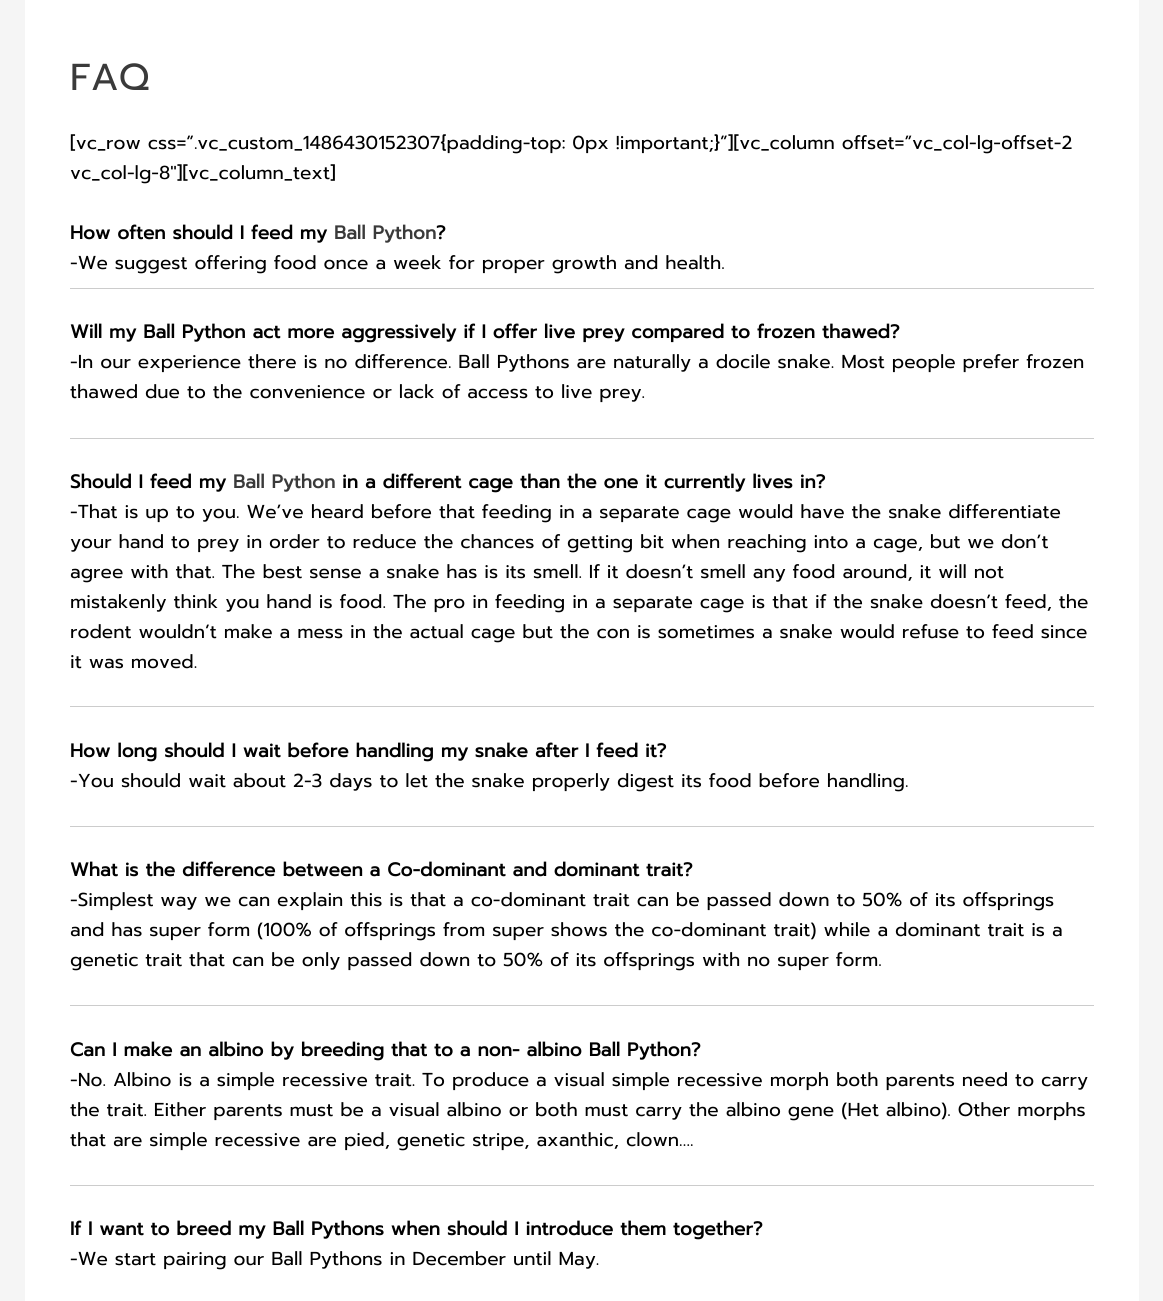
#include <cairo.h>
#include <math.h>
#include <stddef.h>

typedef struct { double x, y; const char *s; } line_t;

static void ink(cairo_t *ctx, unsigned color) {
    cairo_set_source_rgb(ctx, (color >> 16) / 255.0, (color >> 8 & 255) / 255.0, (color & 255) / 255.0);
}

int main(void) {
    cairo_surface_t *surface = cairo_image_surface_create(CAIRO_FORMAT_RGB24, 1163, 1301);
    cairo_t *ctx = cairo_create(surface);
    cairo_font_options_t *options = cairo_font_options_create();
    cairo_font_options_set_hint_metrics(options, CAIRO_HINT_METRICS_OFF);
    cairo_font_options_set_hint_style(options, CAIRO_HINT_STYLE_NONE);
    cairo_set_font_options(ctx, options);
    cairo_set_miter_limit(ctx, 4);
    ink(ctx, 0xF5F5F5);
    cairo_paint(ctx);
    ink(ctx, 0xFFFFFF);
    cairo_rectangle(ctx, 25, 0, 1114, 1301);
    cairo_fill(ctx);
    cairo_select_font_face(ctx, "Prompt", CAIRO_FONT_SLANT_NORMAL, CAIRO_FONT_WEIGHT_NORMAL);
    cairo_set_font_size(ctx, 37.5);
    ink(ctx, 0x3A3A3A);
    cairo_move_to(ctx, 70, 90);
    cairo_show_text(ctx, "FAQ");
    cairo_set_font_size(ctx, 18.75);
    ink(ctx, 0x000000);
    cairo_move_to(ctx, 70, 149);
    cairo_show_text(ctx, "[vc_row css=”.vc_custom_1486430152307{padding-top: 0px !important;}”][vc_column offset=”vc_col-lg-offset-2");
    cairo_move_to(ctx, 70, 179);
    cairo_show_text(ctx, "vc_col-lg-8″][vc_column_text]");
    cairo_select_font_face(ctx, "Prompt", CAIRO_FONT_SLANT_NORMAL, CAIRO_FONT_WEIGHT_BOLD);
    cairo_move_to(ctx, 70, 239);
    cairo_show_text(ctx, "How often should I feed my");
    ink(ctx, 0x3A3A3A);
    cairo_move_to(ctx, 334, 239);
    cairo_show_text(ctx, "Ball Python");
    ink(ctx, 0x000000);
    cairo_move_to(ctx, 436, 239);
    cairo_show_text(ctx, "?");
    cairo_select_font_face(ctx, "Prompt", CAIRO_FONT_SLANT_NORMAL, CAIRO_FONT_WEIGHT_NORMAL);
    cairo_move_to(ctx, 70, 269);
    cairo_show_text(ctx, "-We suggest offering food once a week for proper growth and health.");
    ink(ctx, 0xCCCCCC);
    cairo_rectangle(ctx, 70, 288, 1024, 1);
    cairo_fill(ctx);
    cairo_select_font_face(ctx, "Prompt", CAIRO_FONT_SLANT_NORMAL, CAIRO_FONT_WEIGHT_BOLD);
    ink(ctx, 0x000000);
    cairo_move_to(ctx, 70, 338);
    cairo_show_text(ctx, "Will my Ball Python act more aggressively if I offer live prey compared to frozen thawed?");
    cairo_select_font_face(ctx, "Prompt", CAIRO_FONT_SLANT_NORMAL, CAIRO_FONT_WEIGHT_NORMAL);
    cairo_move_to(ctx, 70, 368);
    cairo_show_text(ctx, "-In our experience there is no difference. Ball Pythons are naturally a docile snake. Most people prefer frozen");
    cairo_move_to(ctx, 70, 398);
    cairo_show_text(ctx, "thawed due to the convenience or lack of access to live prey.");
    ink(ctx, 0xCCCCCC);
    cairo_rectangle(ctx, 70, 438, 1024, 1);
    cairo_fill(ctx);
    cairo_select_font_face(ctx, "Prompt", CAIRO_FONT_SLANT_NORMAL, CAIRO_FONT_WEIGHT_BOLD);
    ink(ctx, 0x000000);
    cairo_move_to(ctx, 70, 488);
    cairo_show_text(ctx, "Should I feed my");
    ink(ctx, 0x3A3A3A);
    cairo_move_to(ctx, 233, 488);
    cairo_show_text(ctx, "Ball Python");
    ink(ctx, 0x000000);
    cairo_move_to(ctx, 342, 488);
    cairo_show_text(ctx, "in a different cage than the one it currently lives in?");
    cairo_select_font_face(ctx, "Prompt", CAIRO_FONT_SLANT_NORMAL, CAIRO_FONT_WEIGHT_NORMAL);
    {
        static const line_t items[] = {
            {70, 518, "-That is up to you. We’ve heard before that feeding in a separate cage would have the snake differentiate"},
            {70, 548, "your hand to prey in order to reduce the chances of getting bit when reaching into a cage, but we don’t"},
            {70, 578, "agree with that. The best sense a snake has is its smell. If it doesn’t smell any food around, it will not"},
            {70, 608, "mistakenly think you hand is food. The pro in feeding in a separate cage is that if the snake doesn’t feed, the"},
            {70, 638, "rodent wouldn’t make a mess in the actual cage but the con is sometimes a snake would refuse to feed since"},
            {70, 668, "it was moved."},
        };
        for (size_t i = 0; i < sizeof items / sizeof *items; i++) {
            cairo_move_to(ctx, items[i].x, items[i].y);
            cairo_show_text(ctx, items[i].s);
        }
    }
    ink(ctx, 0xCCCCCC);
    cairo_rectangle(ctx, 70, 706, 1024, 1);
    cairo_fill(ctx);
    cairo_select_font_face(ctx, "Prompt", CAIRO_FONT_SLANT_NORMAL, CAIRO_FONT_WEIGHT_BOLD);
    ink(ctx, 0x000000);
    cairo_move_to(ctx, 70, 757);
    cairo_show_text(ctx, "How long should I wait before handling my snake after I feed it?");
    cairo_select_font_face(ctx, "Prompt", CAIRO_FONT_SLANT_NORMAL, CAIRO_FONT_WEIGHT_NORMAL);
    cairo_move_to(ctx, 70, 787);
    cairo_show_text(ctx, "-You should wait about 2-3 days to let the snake properly digest its food before handling.");
    ink(ctx, 0xCCCCCC);
    cairo_rectangle(ctx, 70, 826, 1024, 1);
    cairo_fill(ctx);
    cairo_select_font_face(ctx, "Prompt", CAIRO_FONT_SLANT_NORMAL, CAIRO_FONT_WEIGHT_BOLD);
    ink(ctx, 0x000000);
    cairo_move_to(ctx, 70, 876);
    cairo_show_text(ctx, "What is the difference between a Co-dominant and dominant trait?");
    cairo_select_font_face(ctx, "Prompt", CAIRO_FONT_SLANT_NORMAL, CAIRO_FONT_WEIGHT_NORMAL);
    {
        static const line_t items[] = {
            {70, 906, "-Simplest way we can explain this is that a co-dominant trait can be passed down to 50% of its offsprings"},
            {70, 936, "and has super form (100% of offsprings from super shows the co-dominant trait) while a dominant trait is a"},
            {70, 966, "genetic trait that can be only passed down to 50% of its offsprings with no super form."},
        };
        for (size_t i = 0; i < sizeof items / sizeof *items; i++) {
            cairo_move_to(ctx, items[i].x, items[i].y);
            cairo_show_text(ctx, items[i].s);
        }
    }
    ink(ctx, 0xCCCCCC);
    cairo_rectangle(ctx, 70, 1005, 1024, 1);
    cairo_fill(ctx);
    cairo_select_font_face(ctx, "Prompt", CAIRO_FONT_SLANT_NORMAL, CAIRO_FONT_WEIGHT_BOLD);
    ink(ctx, 0x000000);
    cairo_move_to(ctx, 70, 1056);
    cairo_show_text(ctx, "Can I make an albino by breeding that to a non- albino Ball Python?");
    cairo_select_font_face(ctx, "Prompt", CAIRO_FONT_SLANT_NORMAL, CAIRO_FONT_WEIGHT_NORMAL);
    {
        static const line_t items[] = {
            {70, 1086, "-No. Albino is a simple recessive trait. To produce a visual simple recessive morph both parents need to carry"},
            {70, 1116, "the trait. Either parents must be a visual albino or both must carry the albino gene (Het albino). Other morphs"},
            {70, 1146, "that are simple recessive are pied, genetic stripe, axanthic, clown…."},
        };
        for (size_t i = 0; i < sizeof items / sizeof *items; i++) {
            cairo_move_to(ctx, items[i].x, items[i].y);
            cairo_show_text(ctx, items[i].s);
        }
    }
    ink(ctx, 0xCCCCCC);
    cairo_rectangle(ctx, 70, 1185, 1024, 1);
    cairo_fill(ctx);
    cairo_select_font_face(ctx, "Prompt", CAIRO_FONT_SLANT_NORMAL, CAIRO_FONT_WEIGHT_BOLD);
    ink(ctx, 0x000000);
    cairo_move_to(ctx, 70, 1235);
    cairo_show_text(ctx, "If I want to breed my Ball Pythons when should I introduce them together?");
    cairo_select_font_face(ctx, "Prompt", CAIRO_FONT_SLANT_NORMAL, CAIRO_FONT_WEIGHT_NORMAL);
    cairo_move_to(ctx, 70, 1265);
    cairo_show_text(ctx, "-We start pairing our Ball Pythons in December until May.");
    cairo_surface_write_to_png(surface, "image.png");
    cairo_font_options_destroy(options);
    cairo_destroy(ctx);
    cairo_surface_destroy(surface);
    return 0;
}
